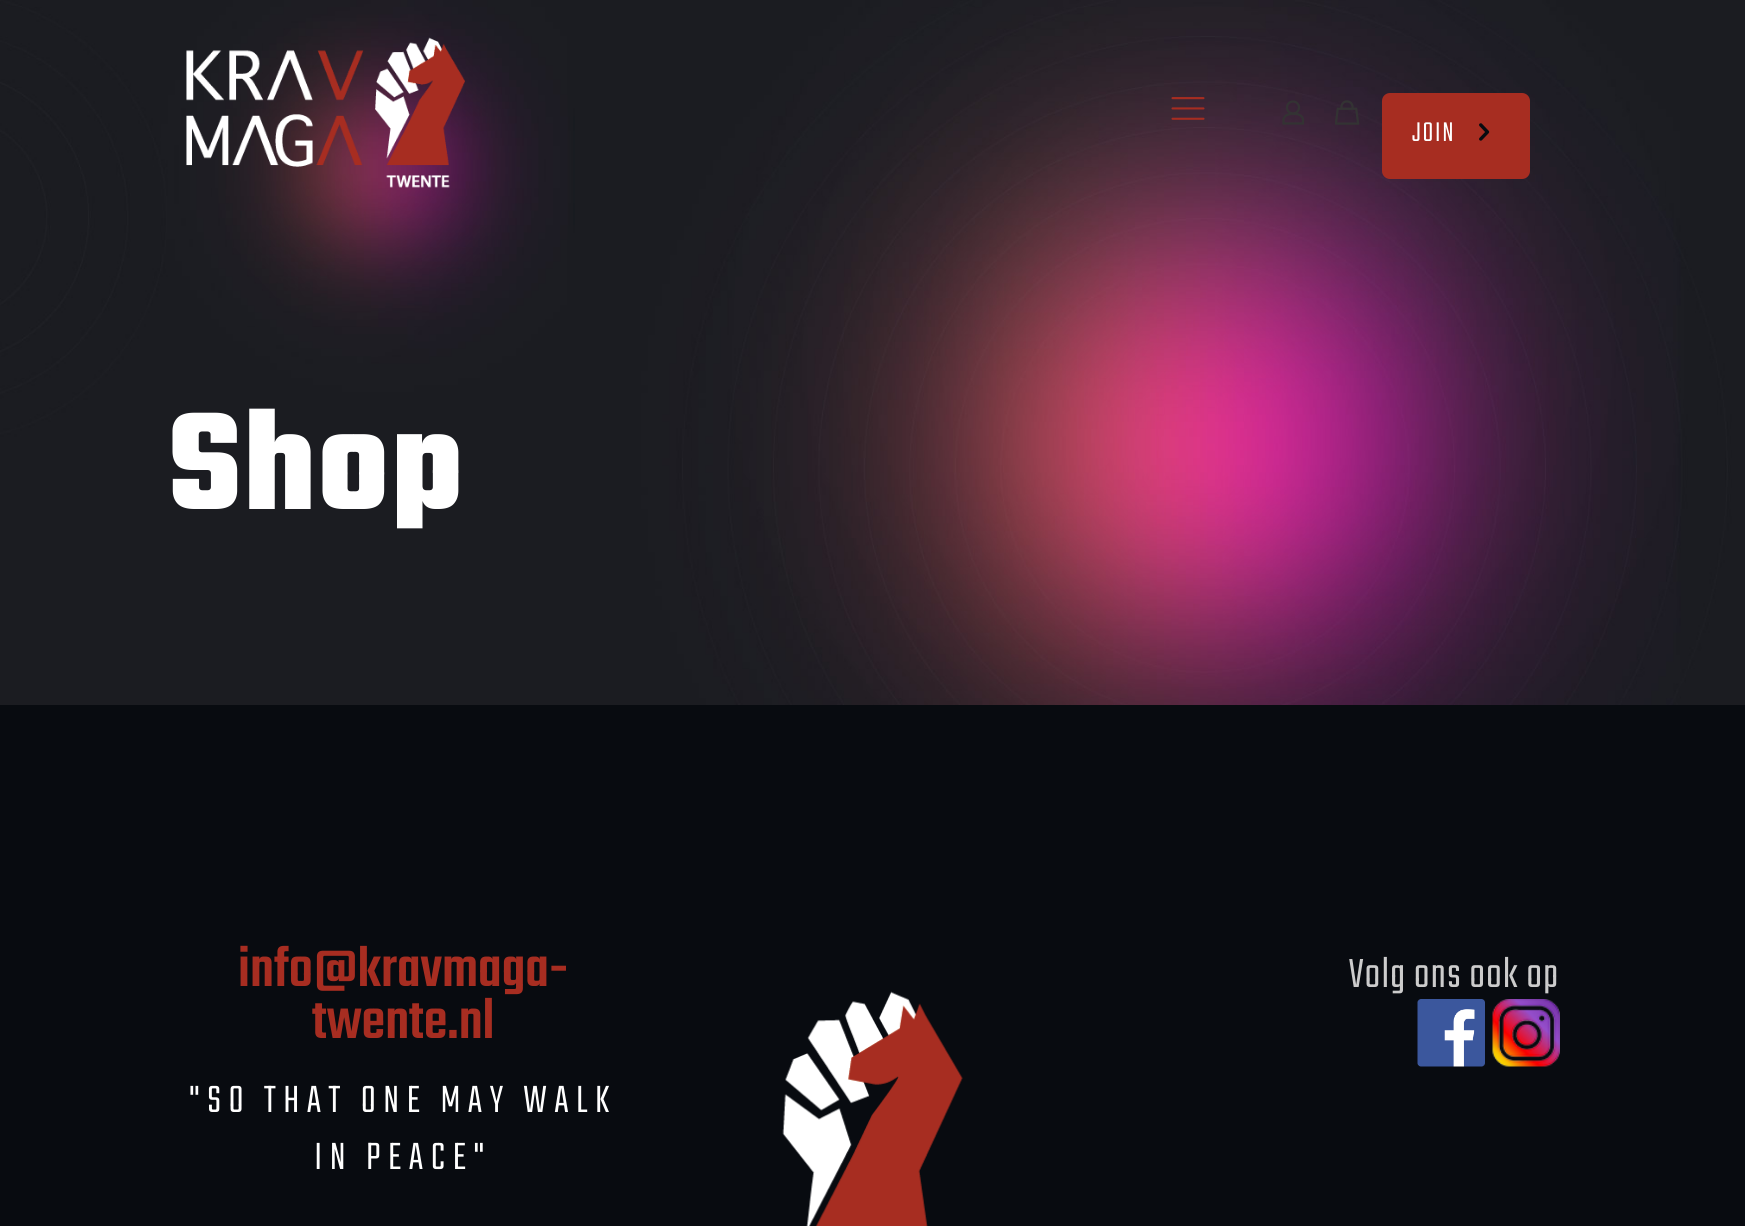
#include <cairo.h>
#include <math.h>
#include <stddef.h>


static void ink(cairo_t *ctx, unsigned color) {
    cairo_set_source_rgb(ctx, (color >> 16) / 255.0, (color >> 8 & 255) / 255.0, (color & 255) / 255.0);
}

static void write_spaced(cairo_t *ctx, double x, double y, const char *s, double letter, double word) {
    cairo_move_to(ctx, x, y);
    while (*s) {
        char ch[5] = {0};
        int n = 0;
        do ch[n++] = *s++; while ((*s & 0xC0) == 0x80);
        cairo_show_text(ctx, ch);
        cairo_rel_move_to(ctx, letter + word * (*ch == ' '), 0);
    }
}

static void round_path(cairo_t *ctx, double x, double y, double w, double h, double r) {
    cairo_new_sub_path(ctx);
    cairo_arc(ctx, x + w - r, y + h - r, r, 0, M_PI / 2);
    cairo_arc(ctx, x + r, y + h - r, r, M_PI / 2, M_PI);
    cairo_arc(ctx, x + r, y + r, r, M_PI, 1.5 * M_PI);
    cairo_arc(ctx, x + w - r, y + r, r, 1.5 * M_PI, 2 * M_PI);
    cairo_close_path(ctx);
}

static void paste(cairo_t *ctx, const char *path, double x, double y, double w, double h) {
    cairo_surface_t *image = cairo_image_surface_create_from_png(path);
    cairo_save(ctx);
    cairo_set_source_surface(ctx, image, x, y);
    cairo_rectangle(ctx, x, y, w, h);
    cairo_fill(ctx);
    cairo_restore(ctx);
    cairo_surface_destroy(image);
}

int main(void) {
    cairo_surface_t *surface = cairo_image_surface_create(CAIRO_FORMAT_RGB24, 1745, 1226);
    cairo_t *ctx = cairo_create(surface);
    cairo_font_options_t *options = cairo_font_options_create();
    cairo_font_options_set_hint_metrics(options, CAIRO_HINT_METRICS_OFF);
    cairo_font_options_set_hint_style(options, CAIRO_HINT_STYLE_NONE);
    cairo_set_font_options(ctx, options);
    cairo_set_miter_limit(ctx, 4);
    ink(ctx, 0x080B10);
    cairo_paint(ctx);
    paste(ctx, "media/1.png", 0, 0, 1745, 705);
    paste(ctx, "media/2.png", 186, 37, 279, 151);
    paste(ctx, "media/3.png", 1171, 97, 34, 23);
    cairo_arc(ctx, 1293, 107.5, 6, 0, 2 * M_PI);
    ink(ctx, 0x333333);
    cairo_set_line_width(ctx, 2.2);
    cairo_stroke(ctx);
    cairo_new_path(ctx);
    cairo_move_to(ctx, 1303, 120);
    cairo_line_to(ctx, 1303, 123.5);
    cairo_line_to(ctx, 1283.5, 123.5);
    cairo_line_to(ctx, 1283.5, 119);
    cairo_curve_to(ctx, 1285.5, 111.5, 1303, 112, 1303, 120);
    cairo_close_path(ctx);
    cairo_stroke(ctx);
    paste(ctx, "media/4.png", 1335, 100, 25, 25);
    ink(ctx, 0xA72D21);
    round_path(ctx, 1382, 93, 148, 86, 8);
    cairo_fill(ctx);
    cairo_select_font_face(ctx, "Teko Light", CAIRO_FONT_SLANT_NORMAL, CAIRO_FONT_WEIGHT_NORMAL);
    cairo_set_font_size(ctx, 30);
    ink(ctx, 0xFFFFFF);
    write_spaced(ctx, 1412, 141, "JOIN", 1.5, 0);
    paste(ctx, "media/5.png", 1479, 123, 11, 18);
    cairo_select_font_face(ctx, "Teko", CAIRO_FONT_SLANT_NORMAL, CAIRO_FONT_WEIGHT_BOLD);
    cairo_set_font_size(ctx, 150);
    write_spaced(ctx, 168, 509, "Shop", 1.5, 0);
    cairo_select_font_face(ctx, "Teko Medium", CAIRO_FONT_SLANT_NORMAL, CAIRO_FONT_WEIGHT_NORMAL);
    cairo_set_font_size(ctx, 60);
    ink(ctx, 0xA72D21);
    cairo_move_to(ctx, 238, 986);
    cairo_show_text(ctx, "info@kravmaga-");
    cairo_move_to(ctx, 312, 1038);
    cairo_show_text(ctx, "twente.nl");
    cairo_select_font_face(ctx, "Teko Light", CAIRO_FONT_SLANT_NORMAL, CAIRO_FONT_WEIGHT_NORMAL);
    cairo_set_font_size(ctx, 42);
    ink(ctx, 0xFFFFFF);
    write_spaced(ctx, 189, 1112, "\"SO THAT ONE MAY WALK", 7.5, 0);
    write_spaced(ctx, 314, 1169, "IN PEACE\"", 7.5, 0);
    cairo_set_font_size(ctx, 45);
    ink(ctx, 0xCCCCCC);
    write_spaced(ctx, 1349, 987, "Volg ons ook op", 1.5, 0);
    paste(ctx, "media/6.png", 1417, 999, 68, 68);
    paste(ctx, "media/7.png", 1492, 999, 68, 68);
    paste(ctx, "media/8.png", 782, 991, 181, 235);
    cairo_surface_write_to_png(surface, "image.png");
    cairo_font_options_destroy(options);
    cairo_destroy(ctx);
    cairo_surface_destroy(surface);
    return 0;
}
